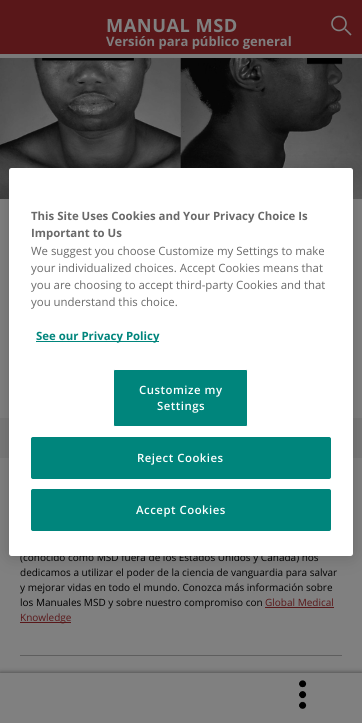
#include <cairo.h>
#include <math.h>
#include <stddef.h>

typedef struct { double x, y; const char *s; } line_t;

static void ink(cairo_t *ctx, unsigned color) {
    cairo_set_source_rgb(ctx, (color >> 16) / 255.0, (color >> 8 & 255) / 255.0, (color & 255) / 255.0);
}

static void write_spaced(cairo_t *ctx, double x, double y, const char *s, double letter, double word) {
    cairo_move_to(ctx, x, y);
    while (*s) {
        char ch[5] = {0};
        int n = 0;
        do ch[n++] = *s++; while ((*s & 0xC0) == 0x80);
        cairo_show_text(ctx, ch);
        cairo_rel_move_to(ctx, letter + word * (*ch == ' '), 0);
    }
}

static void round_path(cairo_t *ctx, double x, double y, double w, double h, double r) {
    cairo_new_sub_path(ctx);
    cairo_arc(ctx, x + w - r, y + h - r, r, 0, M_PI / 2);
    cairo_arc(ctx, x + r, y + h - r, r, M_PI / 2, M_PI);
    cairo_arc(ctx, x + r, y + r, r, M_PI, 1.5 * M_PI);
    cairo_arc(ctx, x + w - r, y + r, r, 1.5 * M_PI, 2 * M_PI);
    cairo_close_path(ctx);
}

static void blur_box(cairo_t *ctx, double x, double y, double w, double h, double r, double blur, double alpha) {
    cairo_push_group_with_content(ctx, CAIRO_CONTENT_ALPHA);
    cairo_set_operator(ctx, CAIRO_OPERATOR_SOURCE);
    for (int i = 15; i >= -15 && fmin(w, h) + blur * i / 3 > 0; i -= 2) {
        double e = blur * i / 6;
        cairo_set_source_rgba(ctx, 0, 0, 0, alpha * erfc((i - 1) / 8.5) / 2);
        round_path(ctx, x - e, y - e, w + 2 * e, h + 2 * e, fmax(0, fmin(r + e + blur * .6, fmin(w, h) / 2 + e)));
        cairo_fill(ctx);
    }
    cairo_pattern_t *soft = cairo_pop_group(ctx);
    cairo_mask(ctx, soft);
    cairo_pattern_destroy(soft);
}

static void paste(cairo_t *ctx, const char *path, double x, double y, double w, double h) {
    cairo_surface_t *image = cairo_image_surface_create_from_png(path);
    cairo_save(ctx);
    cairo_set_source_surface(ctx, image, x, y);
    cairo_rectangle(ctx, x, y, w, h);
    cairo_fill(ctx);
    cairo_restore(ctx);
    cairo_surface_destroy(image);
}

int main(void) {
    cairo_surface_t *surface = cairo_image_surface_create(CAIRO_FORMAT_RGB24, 362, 723);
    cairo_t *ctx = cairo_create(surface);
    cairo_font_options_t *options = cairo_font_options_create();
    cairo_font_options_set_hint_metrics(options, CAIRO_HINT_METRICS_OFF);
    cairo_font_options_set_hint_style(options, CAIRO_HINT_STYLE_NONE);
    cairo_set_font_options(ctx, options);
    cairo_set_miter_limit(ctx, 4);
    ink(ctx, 0x797979);
    cairo_paint(ctx);
    ink(ctx, 0x591719);
    cairo_rectangle(ctx, 0, 0, 362, 54);
    cairo_fill(ctx);
    cairo_select_font_face(ctx, "Open Sans", CAIRO_FONT_SLANT_NORMAL, CAIRO_FONT_WEIGHT_BOLD);
    cairo_set_font_size(ctx, 18.25);
    ink(ctx, 0x808080);
    write_spaced(ctx, 106, 32, "MANUAL MSD", 0.5, 0);
    cairo_set_font_size(ctx, 13);
    cairo_move_to(ctx, 106, 46);
    cairo_show_text(ctx, "Versión para público general");
    cairo_new_path(ctx);
    cairo_arc(ctx, 339, 23.5, 7, 0, 2 * M_PI);
    cairo_set_line_width(ctx, 1.6);
    cairo_stroke(ctx);
    cairo_new_path(ctx);
    cairo_move_to(ctx, 351, 35);
    cairo_line_to(ctx, 345, 29);
    cairo_stroke(ctx);
    cairo_rectangle(ctx, 0, 199, 362, 219);
    cairo_fill(ctx);
    paste(ctx, "media/1.png", 0, 58, 362, 141);
    cairo_rectangle(ctx, 0, 458, 362, 215);
    cairo_fill(ctx);
    ink(ctx, 0x5E5E5E);
    cairo_rectangle(ctx, 20, 655, 322, 1);
    cairo_fill(ctx);
    cairo_select_font_face(ctx, "Open Sans", CAIRO_FONT_SLANT_NORMAL, CAIRO_FONT_WEIGHT_NORMAL);
    cairo_set_font_size(ctx, 10);
    ink(ctx, 0x000000);
    {
        static const line_t items[] = {
            {20, 561, "(conocido como MSD fuera de los Estados Unidos y Canadá) nos"},
            {20, 576, "dedicamos a utilizar el poder de la ciencia de vanguardia para salvar"},
            {20, 591, "y mejorar vidas en todo el mundo. Conozca más información sobre"},
            {20, 606, "los Manuales MSD y sobre nuestro compromiso con"},
        };
        for (size_t i = 0; i < sizeof items / sizeof *items; i++) {
            cairo_move_to(ctx, items[i].x, items[i].y);
            cairo_show_text(ctx, items[i].s);
        }
    }
    ink(ctx, 0x591719);
    cairo_move_to(ctx, 265, 606);
    cairo_show_text(ctx, "Global Medical");
    cairo_rectangle(ctx, 265, 607, 69, 1);
    cairo_fill(ctx);
    cairo_rectangle(ctx, 20, 622, 51, 1);
    cairo_fill(ctx);
    cairo_move_to(ctx, 20, 621);
    cairo_show_text(ctx, "Knowledge");
    ink(ctx, 0x000000);
    blur_box(ctx, 0, 673, 362, 50, 0, 2.5, 0.5);
    ink(ctx, 0x808080);
    cairo_rectangle(ctx, 0, 673, 362, 50);
    cairo_fill(ctx);
    paste(ctx, "media/2.png", 299, 680, 8, 29);
    ink(ctx, 0x000000);
    blur_box(ctx, 9, 168, 344, 388, 2.5, 9, 0.2);
    ink(ctx, 0xFFFFFF);
    round_path(ctx, 9, 168, 344, 388, 2.5);
    cairo_fill(ctx);
    cairo_select_font_face(ctx, "Open Sans", CAIRO_FONT_SLANT_NORMAL, CAIRO_FONT_WEIGHT_BOLD);
    cairo_set_font_size(ctx, 11.4);
    ink(ctx, 0x696969);
    cairo_move_to(ctx, 31, 220);
    cairo_show_text(ctx, "This Site Uses Cookies and Your Privacy Choice Is");
    cairo_move_to(ctx, 31, 237);
    cairo_show_text(ctx, "Important to Us");
    cairo_select_font_face(ctx, "Open Sans", CAIRO_FONT_SLANT_NORMAL, CAIRO_FONT_WEIGHT_NORMAL);
    {
        static const line_t items[] = {
            {31, 255, "We suggest you choose Customize my Settings to make"},
            {31, 272, "your individualized choices. Accept Cookies means that"},
            {31, 289, "you are choosing to accept third-party Cookies and that"},
            {31, 306, "you understand this choice."},
        };
        for (size_t i = 0; i < sizeof items / sizeof *items; i++) {
            cairo_move_to(ctx, items[i].x, items[i].y);
            cairo_show_text(ctx, items[i].s);
        }
    }
    ink(ctx, 0x00857C);
    cairo_rectangle(ctx, 36, 341, 123, 1);
    cairo_fill(ctx);
    cairo_select_font_face(ctx, "Open Sans", CAIRO_FONT_SLANT_NORMAL, CAIRO_FONT_WEIGHT_BOLD);
    cairo_move_to(ctx, 36, 340);
    cairo_show_text(ctx, "See our Privacy Policy");
    round_path(ctx, 113.5, 369.5, 134, 57, 1.5);
    cairo_fill_preserve(ctx);
    ink(ctx, 0xFFFFFF);
    cairo_set_line_width(ctx, 1);
    cairo_stroke(ctx);
    cairo_select_font_face(ctx, "Open Sans SemiBold", CAIRO_FONT_SLANT_NORMAL, CAIRO_FONT_WEIGHT_NORMAL);
    write_spaced(ctx, 139, 394, "Customize my", 0.5, 0);
    write_spaced(ctx, 157, 410, "Settings", 0.5, 0);
    ink(ctx, 0x00857C);
    round_path(ctx, 31.5, 437.5, 299, 41, 1.5);
    cairo_fill_preserve(ctx);
    cairo_stroke(ctx);
    ink(ctx, 0xFFFFFF);
    write_spaced(ctx, 137, 462, "Reject Cookies", 0.5, 0);
    ink(ctx, 0x00857C);
    round_path(ctx, 31.5, 489.5, 299, 41, 1.5);
    cairo_fill_preserve(ctx);
    cairo_stroke(ctx);
    ink(ctx, 0xFFFFFF);
    write_spaced(ctx, 136, 514, "Accept Cookies", 0.5, 0);
    cairo_surface_write_to_png(surface, "image.png");
    cairo_font_options_destroy(options);
    cairo_destroy(ctx);
    cairo_surface_destroy(surface);
    return 0;
}
